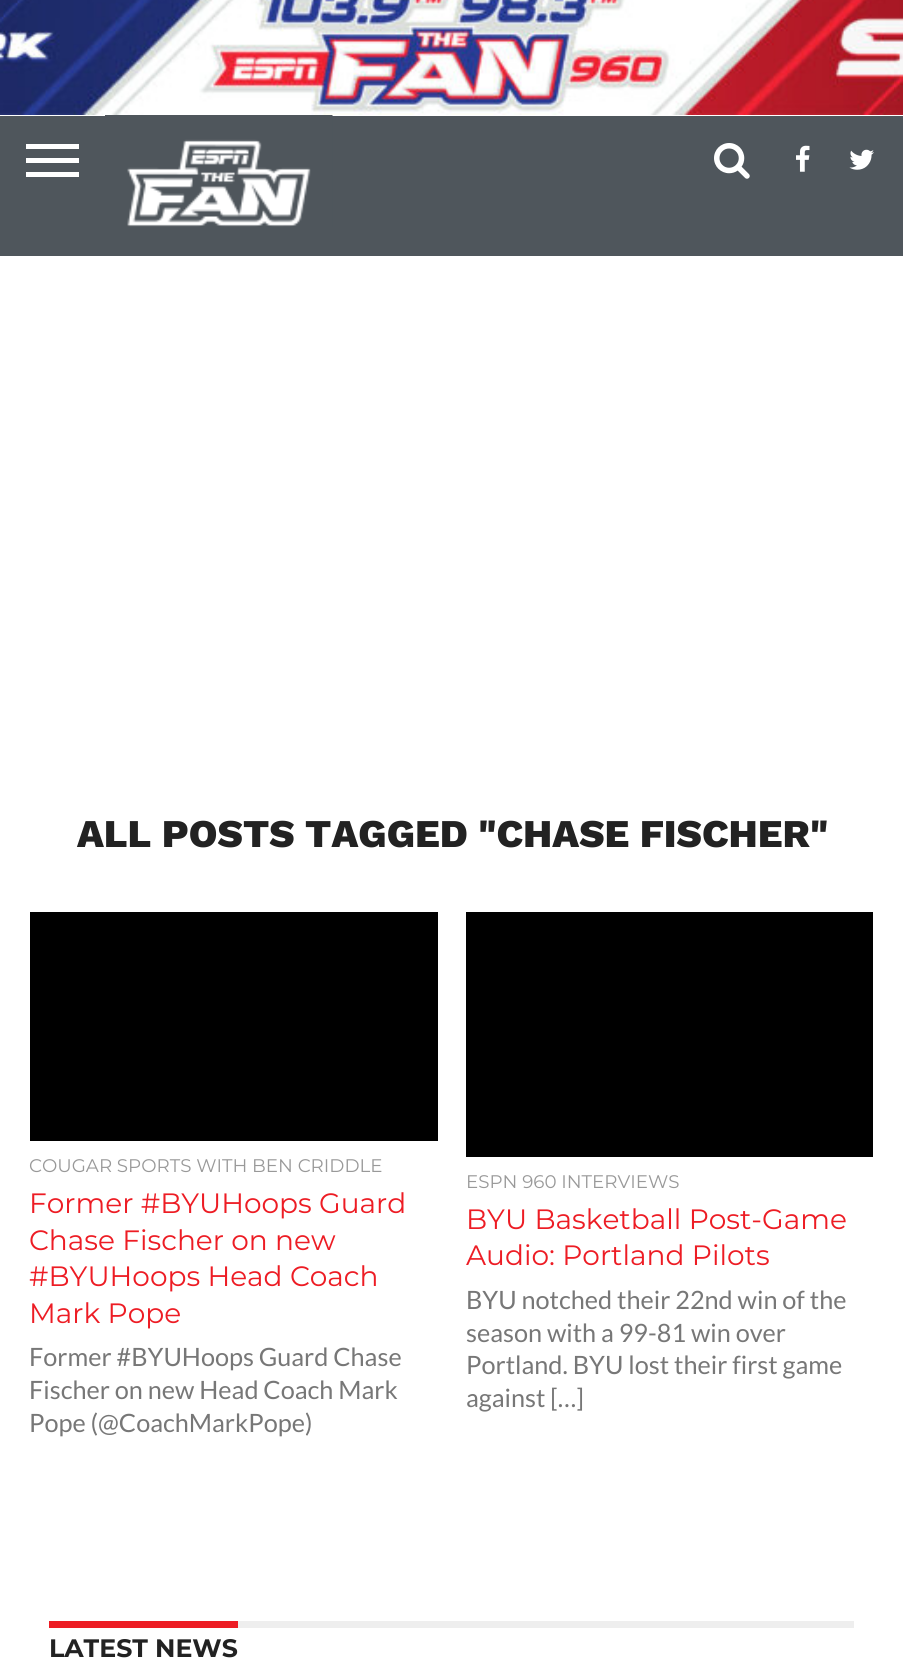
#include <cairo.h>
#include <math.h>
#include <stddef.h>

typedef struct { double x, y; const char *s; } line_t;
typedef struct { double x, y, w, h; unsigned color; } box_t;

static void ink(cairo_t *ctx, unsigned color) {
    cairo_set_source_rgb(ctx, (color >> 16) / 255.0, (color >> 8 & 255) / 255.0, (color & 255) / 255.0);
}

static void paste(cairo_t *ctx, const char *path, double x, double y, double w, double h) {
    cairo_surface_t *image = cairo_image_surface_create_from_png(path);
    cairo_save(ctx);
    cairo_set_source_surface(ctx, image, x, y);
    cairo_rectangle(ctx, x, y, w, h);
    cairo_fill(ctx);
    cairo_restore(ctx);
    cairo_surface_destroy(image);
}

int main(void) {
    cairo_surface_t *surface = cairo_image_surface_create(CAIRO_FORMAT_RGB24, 903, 1661);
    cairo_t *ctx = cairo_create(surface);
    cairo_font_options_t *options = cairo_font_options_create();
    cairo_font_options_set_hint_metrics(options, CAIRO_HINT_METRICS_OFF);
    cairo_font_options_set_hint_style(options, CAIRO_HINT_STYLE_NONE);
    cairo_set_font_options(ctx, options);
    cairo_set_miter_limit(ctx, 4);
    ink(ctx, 0xFFFFFF);
    cairo_paint(ctx);
    paste(ctx, "media/1.png", 0, 0, 903, 115);
    {
        static const box_t items[] = {
            {0, 116, 903, 140, 0x4F565C},
            {26, 144, 53, 5, 0xFFFFFF},
            {26, 158, 53, 5, 0xFFFFFF},
            {26, 172, 53, 5, 0xFFFFFF},
        };
        for (size_t i = 0; i < sizeof items / sizeof *items; i++) {
            ink(ctx, items[i].color);
            cairo_rectangle(ctx, items[i].x, items[i].y, items[i].w, items[i].h);
            cairo_fill(ctx);
        }
    }
    paste(ctx, "media/2.png", 105, 115, 228, 112);
    paste(ctx, "media/3.png", 714, 143, 36, 36);
    paste(ctx, "media/4.png", 796, 145, 14, 27);
    paste(ctx, "media/5.png", 849, 149, 25, 21);
    cairo_select_font_face(ctx, "Work Sans ExtraBold", CAIRO_FONT_SLANT_NORMAL, CAIRO_FONT_WEIGHT_NORMAL);
    cairo_set_font_size(ctx, 39.25);
    ink(ctx, 0x222222);
    cairo_move_to(ctx, 77, 847);
    cairo_show_text(ctx, "ALL POSTS TAGGED \"CHASE FISCHER\"");
    ink(ctx, 0x000000);
    cairo_rectangle(ctx, 30, 912, 408, 229);
    cairo_fill(ctx);
    cairo_select_font_face(ctx, "Montserrat", CAIRO_FONT_SLANT_NORMAL, CAIRO_FONT_WEIGHT_NORMAL);
    cairo_set_font_size(ctx, 18.25);
    ink(ctx, 0x999999);
    cairo_move_to(ctx, 29, 1172);
    cairo_show_text(ctx, "COUGAR SPORTS WITH BEN CRIDDLE");
    cairo_set_font_size(ctx, 28);
    ink(ctx, 0xED1C24);
    {
        static const line_t items[] = {
            {29, 1213, "Former #BYUHoops Guard"},
            {29, 1250, "Chase Fischer on new"},
            {29, 1286, "#BYUHoops Head Coach"},
            {29, 1323, "Mark Pope"},
        };
        for (size_t i = 0; i < sizeof items / sizeof *items; i++) {
            cairo_move_to(ctx, items[i].x, items[i].y);
            cairo_show_text(ctx, items[i].s);
        }
    }
    cairo_select_font_face(ctx, "Lato", CAIRO_FONT_SLANT_NORMAL, CAIRO_FONT_WEIGHT_NORMAL);
    cairo_set_font_size(ctx, 25.25);
    ink(ctx, 0x777777);
    {
        static const line_t items[] = {
            {29, 1366, "Former #BYUHoops Guard Chase"},
            {29, 1399, "Fischer on new Head Coach Mark"},
            {29, 1432, "Pope (@CoachMarkPope)"},
        };
        for (size_t i = 0; i < sizeof items / sizeof *items; i++) {
            cairo_move_to(ctx, items[i].x, items[i].y);
            cairo_show_text(ctx, items[i].s);
        }
    }
    ink(ctx, 0x000000);
    cairo_rectangle(ctx, 466, 912, 407, 245);
    cairo_fill(ctx);
    cairo_select_font_face(ctx, "Montserrat", CAIRO_FONT_SLANT_NORMAL, CAIRO_FONT_WEIGHT_NORMAL);
    cairo_set_font_size(ctx, 18.25);
    ink(ctx, 0x999999);
    cairo_move_to(ctx, 466, 1188);
    cairo_show_text(ctx, "ESPN 960 INTERVIEWS");
    cairo_set_font_size(ctx, 28);
    ink(ctx, 0xED1C24);
    cairo_move_to(ctx, 466, 1229);
    cairo_show_text(ctx, "BYU Basketball Post-Game");
    cairo_move_to(ctx, 466, 1265);
    cairo_show_text(ctx, "Audio: Portland Pilots");
    cairo_select_font_face(ctx, "Lato", CAIRO_FONT_SLANT_NORMAL, CAIRO_FONT_WEIGHT_NORMAL);
    cairo_set_font_size(ctx, 25.25);
    ink(ctx, 0x777777);
    {
        static const line_t items[] = {
            {466, 1309, "BYU notched their 22nd win of the"},
            {466, 1342, "season with a 99-81 win over"},
            {466, 1374, "Portland. BYU lost their first game"},
            {466, 1407, "against […]"},
        };
        for (size_t i = 0; i < sizeof items / sizeof *items; i++) {
            cairo_move_to(ctx, items[i].x, items[i].y);
            cairo_show_text(ctx, items[i].s);
        }
    }
    ink(ctx, 0xEEEEEE);
    cairo_rectangle(ctx, 238, 1621, 616, 7);
    cairo_fill(ctx);
    ink(ctx, 0xED1C24);
    cairo_rectangle(ctx, 49, 1621, 189, 7);
    cairo_fill(ctx);
    cairo_select_font_face(ctx, "Montserrat", CAIRO_FONT_SLANT_NORMAL, CAIRO_FONT_WEIGHT_BOLD);
    ink(ctx, 0x222222);
    cairo_move_to(ctx, 49, 1657);
    cairo_show_text(ctx, "LATEST NEWS");
    cairo_surface_write_to_png(surface, "image.png");
    cairo_font_options_destroy(options);
    cairo_destroy(ctx);
    cairo_surface_destroy(surface);
    return 0;
}
